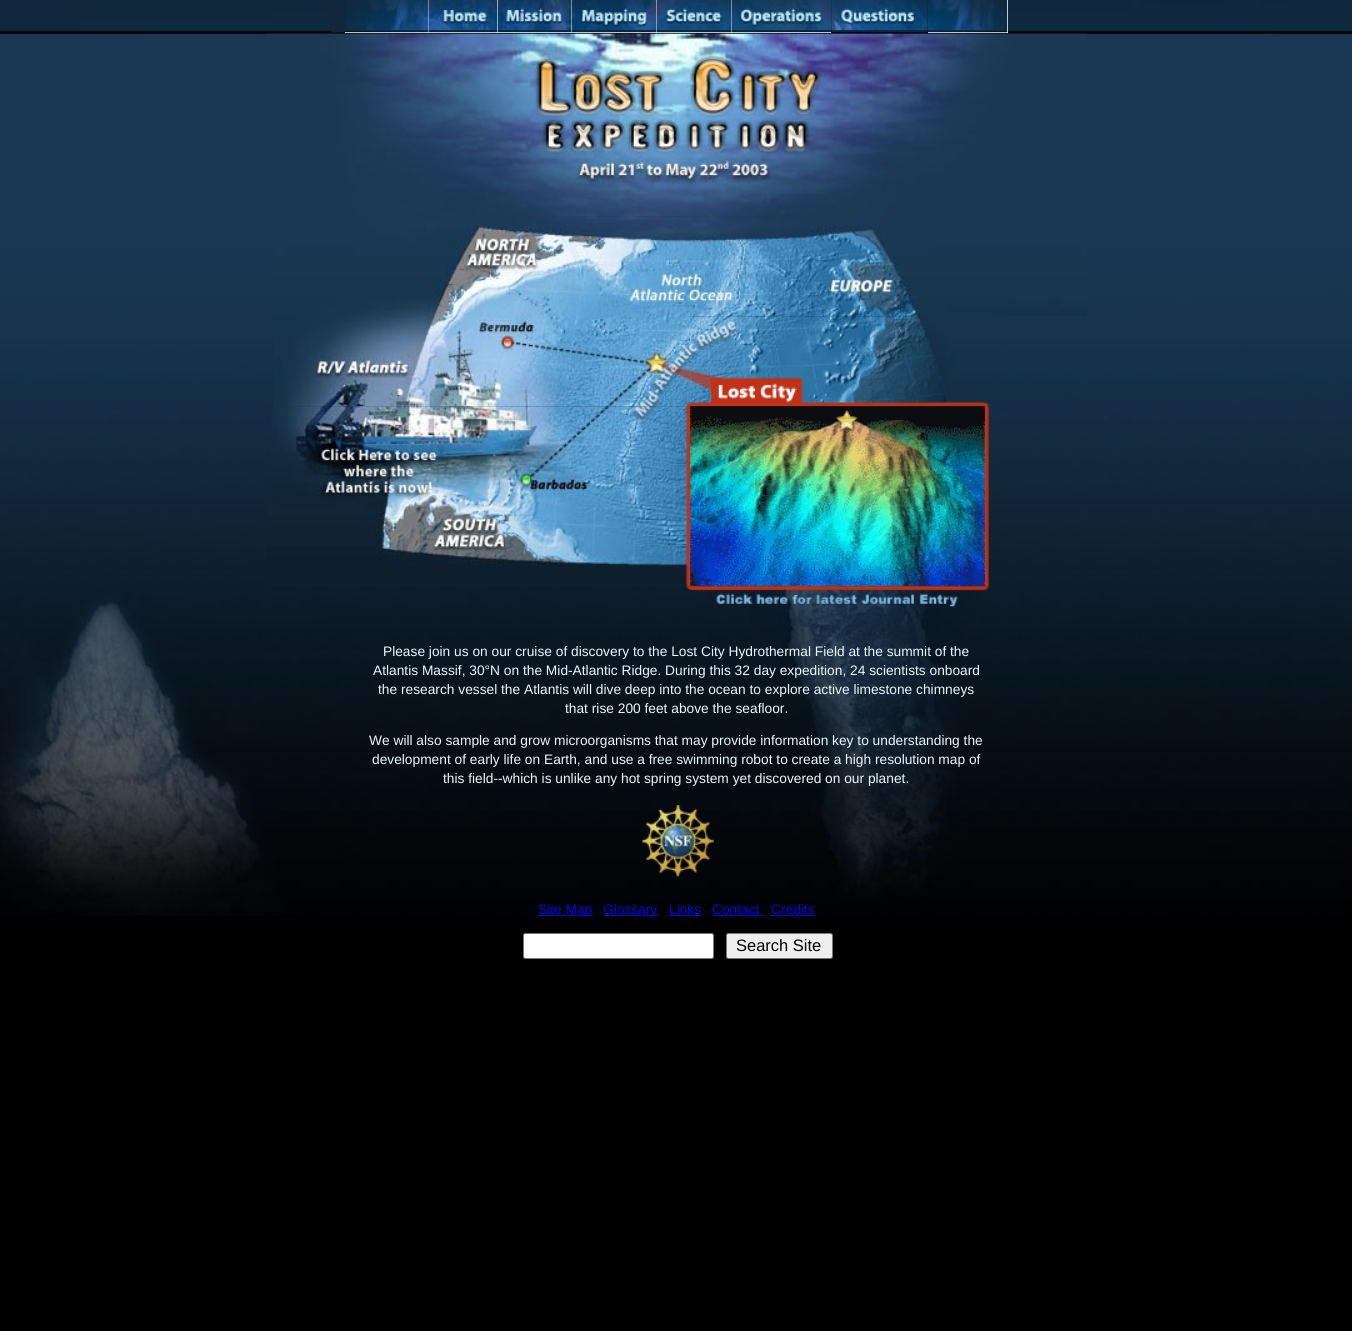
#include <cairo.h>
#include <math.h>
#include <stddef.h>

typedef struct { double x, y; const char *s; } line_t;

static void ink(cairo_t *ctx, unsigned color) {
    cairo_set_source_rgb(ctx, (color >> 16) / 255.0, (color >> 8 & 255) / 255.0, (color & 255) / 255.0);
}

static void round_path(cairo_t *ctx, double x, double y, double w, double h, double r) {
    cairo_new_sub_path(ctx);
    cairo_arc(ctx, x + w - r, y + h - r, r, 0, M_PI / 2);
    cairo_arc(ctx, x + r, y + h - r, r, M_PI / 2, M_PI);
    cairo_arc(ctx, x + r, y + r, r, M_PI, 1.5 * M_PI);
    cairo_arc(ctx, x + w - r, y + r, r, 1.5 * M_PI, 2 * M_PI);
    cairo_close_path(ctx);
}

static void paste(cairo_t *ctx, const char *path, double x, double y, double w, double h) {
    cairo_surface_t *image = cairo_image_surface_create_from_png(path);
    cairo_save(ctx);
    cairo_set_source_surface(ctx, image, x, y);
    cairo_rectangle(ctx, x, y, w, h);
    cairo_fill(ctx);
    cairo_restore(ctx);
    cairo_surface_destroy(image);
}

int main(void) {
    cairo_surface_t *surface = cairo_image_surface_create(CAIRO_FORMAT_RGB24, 1352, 1331);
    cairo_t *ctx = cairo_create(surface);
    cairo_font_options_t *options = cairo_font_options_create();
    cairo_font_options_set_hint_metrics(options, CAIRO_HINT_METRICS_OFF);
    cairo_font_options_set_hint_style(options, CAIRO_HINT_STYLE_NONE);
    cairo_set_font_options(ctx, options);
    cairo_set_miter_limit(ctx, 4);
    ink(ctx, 0x000000);
    cairo_paint(ctx);
    paste(ctx, "media/1.png", 0, 0, 1352, 916);
    ink(ctx, 0xFFFFFF);
    cairo_rectangle(ctx, 345, 0, 153, 33);
    cairo_fill(ctx);
    paste(ctx, "media/2.png", 345, 0, 84, 33);
    paste(ctx, "media/3.png", 428, 0, 70, 33);
    cairo_rectangle(ctx, 498, 32, 73, 1);
    cairo_fill(ctx);
    paste(ctx, "media/4.png", 497, 0, 74, 33);
    cairo_rectangle(ctx, 571, 0, 260, 33);
    cairo_fill(ctx);
    paste(ctx, "media/5.png", 571, 0, 85, 33);
    paste(ctx, "media/6.png", 656, 0, 75, 33);
    paste(ctx, "media/7.png", 731, 0, 101, 33);
    paste(ctx, "media/8.png", 831, 0, 97, 33);
    cairo_rectangle(ctx, 928, 0, 80, 33);
    cairo_fill(ctx);
    paste(ctx, "media/9.png", 927, 0, 81, 33);
    paste(ctx, "media/10.png", 266, 33, 820, 184);
    paste(ctx, "media/11.png", 274, 216, 416, 191);
    paste(ctx, "media/12.png", 690, 216, 397, 101);
    paste(ctx, "media/13.png", 690, 316, 299, 91);
    paste(ctx, "media/14.png", 266, 406, 424, 181);
    paste(ctx, "media/15.png", 690, 406, 295, 181);
    paste(ctx, "media/16.png", 985, 406, 4, 181);
    paste(ctx, "media/17.png", 686, 586, 303, 21);
    cairo_select_font_face(ctx, "Liberation Sans", CAIRO_FONT_SLANT_NORMAL, CAIRO_FONT_WEIGHT_NORMAL);
    cairo_set_font_size(ctx, 13.75);
    ink(ctx, 0xEBF7FF);
    {
        static const line_t items[] = {
            {383, 656, "Please join us on our cruise of discovery to the Lost City Hydrothermal Field at the summit of the"},
            {373, 675, "Atlantis Massif, 30°N on the Mid-Atlantic Ridge. During this 32 day expedition, 24 scientists onboard"},
            {378, 694, "the research vessel the Atlantis will dive deep into the ocean to explore active limestone chimneys"},
            {565, 713, "that rise 200 feet above the seafloor."},
            {369, 745, "We will also sample and grow microorganisms that may provide information key to understanding the"},
            {372, 764, "development of early life on Earth, and use a free swimming robot to create a high resolution map of"},
            {443, 783, "this field--which is unlike any hot spring system yet discovered on our planet."},
        };
        for (size_t i = 0; i < sizeof items / sizeof *items; i++) {
            cairo_move_to(ctx, items[i].x, items[i].y);
            cairo_show_text(ctx, items[i].s);
        }
    }
    paste(ctx, "media/18.png", 642, 804, 72, 73);
    ink(ctx, 0x0000EE);
    cairo_rectangle(ctx, 538, 915, 55, 1);
    cairo_fill(ctx);
    cairo_move_to(ctx, 538, 914);
    cairo_show_text(ctx, "Site Map");
    cairo_rectangle(ctx, 604, 915, 54, 1);
    cairo_fill(ctx);
    cairo_move_to(ctx, 603, 914);
    cairo_show_text(ctx, "Glossary");
    cairo_move_to(ctx, 669, 914);
    cairo_show_text(ctx, "Links");
    cairo_rectangle(ctx, 669, 915, 32, 1);
    cairo_fill(ctx);
    cairo_move_to(ctx, 712, 914);
    cairo_show_text(ctx, "Contact");
    cairo_rectangle(ctx, 713, 915, 51, 1);
    cairo_fill(ctx);
    cairo_move_to(ctx, 771, 914);
    cairo_show_text(ctx, "Credits");
    cairo_rectangle(ctx, 771, 915, 44, 1);
    cairo_fill(ctx);
    ink(ctx, 0xFFFFFF);
    round_path(ctx, 523.5, 933.5, 190, 25, 2);
    cairo_fill_preserve(ctx);
    ink(ctx, 0x767676);
    cairo_set_line_width(ctx, 1);
    cairo_stroke(ctx);
    ink(ctx, 0xEFEFEF);
    round_path(ctx, 726.5, 933.5, 106, 25, 2);
    cairo_fill_preserve(ctx);
    ink(ctx, 0x767676);
    cairo_stroke(ctx);
    cairo_set_font_size(ctx, 16.5);
    ink(ctx, 0x000000);
    cairo_move_to(ctx, 736, 951);
    cairo_show_text(ctx, "Search Site");
    cairo_surface_write_to_png(surface, "image.png");
    cairo_font_options_destroy(options);
    cairo_destroy(ctx);
    cairo_surface_destroy(surface);
    return 0;
}
